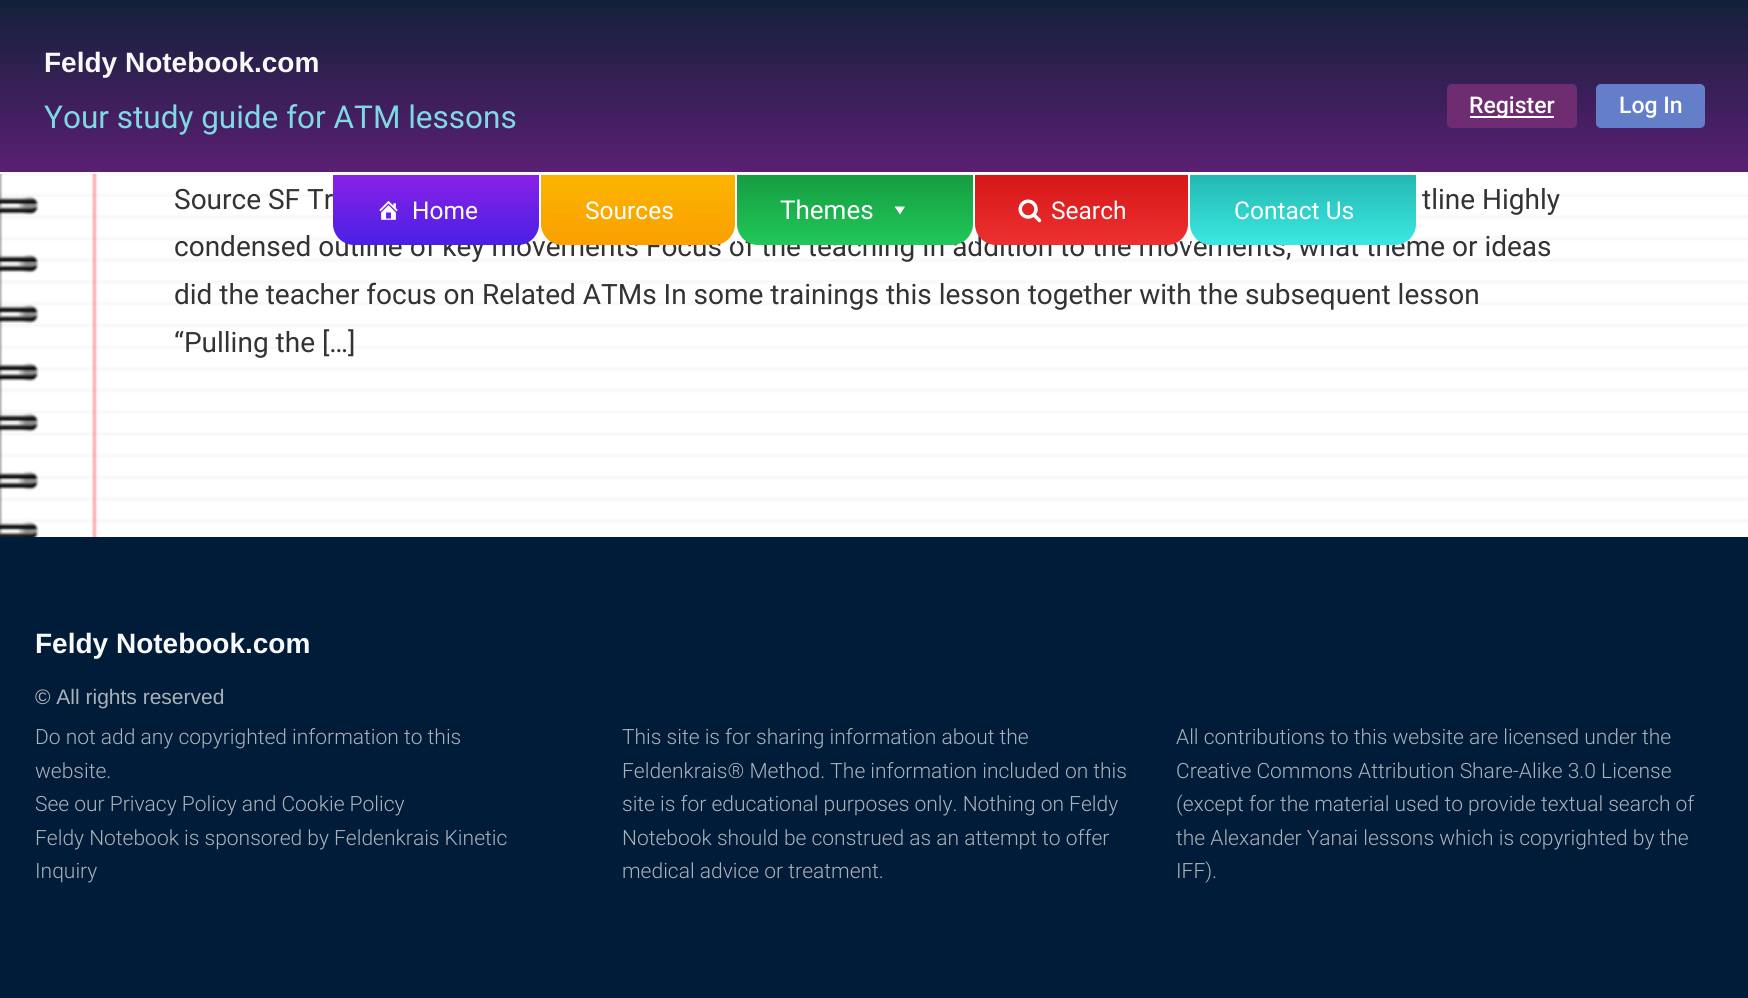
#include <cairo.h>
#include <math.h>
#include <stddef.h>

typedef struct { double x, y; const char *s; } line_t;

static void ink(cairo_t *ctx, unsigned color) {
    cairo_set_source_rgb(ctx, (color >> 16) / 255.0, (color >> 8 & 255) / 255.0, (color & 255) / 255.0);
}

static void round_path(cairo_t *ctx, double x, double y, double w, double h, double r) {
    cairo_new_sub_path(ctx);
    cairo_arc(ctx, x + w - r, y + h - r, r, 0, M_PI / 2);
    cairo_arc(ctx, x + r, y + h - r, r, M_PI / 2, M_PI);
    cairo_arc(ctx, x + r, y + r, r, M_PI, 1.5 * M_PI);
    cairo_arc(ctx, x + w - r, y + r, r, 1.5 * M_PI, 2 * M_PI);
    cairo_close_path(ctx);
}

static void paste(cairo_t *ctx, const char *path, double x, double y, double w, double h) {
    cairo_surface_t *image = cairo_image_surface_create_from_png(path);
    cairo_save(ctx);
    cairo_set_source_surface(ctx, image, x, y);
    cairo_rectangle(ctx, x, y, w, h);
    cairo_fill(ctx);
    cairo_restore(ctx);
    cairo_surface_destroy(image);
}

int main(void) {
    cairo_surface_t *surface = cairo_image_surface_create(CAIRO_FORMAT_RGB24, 1748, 998);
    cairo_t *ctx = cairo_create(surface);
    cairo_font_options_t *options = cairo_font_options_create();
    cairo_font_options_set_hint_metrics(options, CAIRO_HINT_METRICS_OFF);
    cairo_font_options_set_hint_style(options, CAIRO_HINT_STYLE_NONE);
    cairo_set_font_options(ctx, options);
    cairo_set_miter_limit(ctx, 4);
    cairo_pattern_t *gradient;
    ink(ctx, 0xFFFFFF);
    cairo_paint(ctx);
    paste(ctx, "media/1.png", 0, 174, 1748, 363);
    gradient = cairo_pattern_create_linear(874, 0, 874, 172);
    cairo_pattern_add_color_stop_rgba(gradient, 0, 0.075, 0.125, 0.224, 1);
    cairo_pattern_add_color_stop_rgba(gradient, 1, 0.353, 0.122, 0.451, 1);
    cairo_set_source(ctx, gradient);
    cairo_pattern_destroy(gradient);
    cairo_rectangle(ctx, 0, 0, 1748, 172);
    cairo_fill(ctx);
    cairo_select_font_face(ctx, "Liberation Sans", CAIRO_FONT_SLANT_NORMAL, CAIRO_FONT_WEIGHT_BOLD);
    cairo_set_font_size(ctx, 28);
    ink(ctx, 0xF8F9FB);
    cairo_move_to(ctx, 44, 72);
    cairo_show_text(ctx, "Feldy Notebook.com");
    cairo_select_font_face(ctx, "Roboto", CAIRO_FONT_SLANT_NORMAL, CAIRO_FONT_WEIGHT_NORMAL);
    cairo_set_font_size(ctx, 31.5);
    ink(ctx, 0x7FD9E3);
    cairo_move_to(ctx, 44, 128);
    cairo_show_text(ctx, "Your study guide for ATM lessons");
    cairo_set_source_rgba(ctx, 0.459, 0.18, 0.455, 0.87);
    round_path(ctx, 1447, 84, 130, 44, 5);
    cairo_fill(ctx);
    ink(ctx, 0xFFFFFF);
    cairo_rectangle(ctx, 1470, 116, 84, 2);
    cairo_fill(ctx);
    cairo_select_font_face(ctx, "Roboto Medium", CAIRO_FONT_SLANT_NORMAL, CAIRO_FONT_WEIGHT_NORMAL);
    cairo_set_font_size(ctx, 23);
    cairo_move_to(ctx, 1469, 113);
    cairo_show_text(ctx, "Register");
    ink(ctx, 0x657EC9);
    round_path(ctx, 1596, 84, 109, 44, 5);
    cairo_fill(ctx);
    ink(ctx, 0xFFFFFF);
    cairo_move_to(ctx, 1619, 113);
    cairo_show_text(ctx, "Log In");
    cairo_select_font_face(ctx, "Roboto", CAIRO_FONT_SLANT_NORMAL, CAIRO_FONT_WEIGHT_NORMAL);
    cairo_set_font_size(ctx, 28);
    ink(ctx, 0x333333);
    cairo_move_to(ctx, 174, 256);
    cairo_show_text(ctx, "condensed outline of key movements Focus of the teaching In addition to the movements, what theme or ideas");
    gradient = cairo_pattern_create_linear(436, 175, 436, 245);
    cairo_pattern_add_color_stop_rgba(gradient, 0, 0.545, 0.125, 0.902, 1);
    cairo_pattern_add_color_stop_rgba(gradient, 1, 0.286, 0.125, 0.902, 1);
    cairo_set_source(ctx, gradient);
    cairo_pattern_destroy(gradient);
    cairo_new_path(ctx);
    cairo_move_to(ctx, 333, 175);
    cairo_line_to(ctx, 539, 175);
    cairo_line_to(ctx, 539, 224);
    cairo_curve_to(ctx, 539, 235.5, 529.5, 245, 518, 245);
    cairo_line_to(ctx, 354, 245);
    cairo_curve_to(ctx, 342.5, 245, 333, 235.5, 333, 224);
    cairo_close_path(ctx);
    cairo_fill(ctx);
    paste(ctx, "media/2.png", 379, 200, 19, 20);
    cairo_set_font_size(ctx, 24.5);
    ink(ctx, 0xFFFFFF);
    cairo_move_to(ctx, 412, 219);
    cairo_show_text(ctx, "Home");
    cairo_set_source_rgba(ctx, 1, 1, 1, 0.1);
    cairo_rectangle(ctx, 541, 241, 2, 4);
    cairo_fill(ctx);
    ink(ctx, 0xFFFFFF);
    cairo_rectangle(ctx, 539, 175, 2, 70);
    cairo_fill(ctx);
    gradient = cairo_pattern_create_linear(638, 175, 638, 245);
    cairo_pattern_add_color_stop_rgba(gradient, 0, 0.988, 0.706, 0, 1);
    cairo_pattern_add_color_stop_rgba(gradient, 1, 0.98, 0.627, 0, 1);
    cairo_set_source(ctx, gradient);
    cairo_pattern_destroy(gradient);
    cairo_new_path(ctx);
    cairo_move_to(ctx, 541, 175);
    cairo_line_to(ctx, 735, 175);
    cairo_line_to(ctx, 735, 224);
    cairo_curve_to(ctx, 735, 235.5, 725.5, 245, 714, 245);
    cairo_line_to(ctx, 562, 245);
    cairo_curve_to(ctx, 550.5, 245, 541, 235.5, 541, 224);
    cairo_close_path(ctx);
    cairo_fill(ctx);
    ink(ctx, 0xFFFFFF);
    cairo_move_to(ctx, 585, 219);
    cairo_show_text(ctx, "Sources");
    cairo_set_source_rgba(ctx, 1, 1, 1, 0.1);
    cairo_rectangle(ctx, 737, 241, 2, 4);
    cairo_fill(ctx);
    ink(ctx, 0xFFFFFF);
    cairo_rectangle(ctx, 735, 175, 2, 70);
    cairo_fill(ctx);
    gradient = cairo_pattern_create_linear(855, 175, 855, 245);
    cairo_pattern_add_color_stop_rgba(gradient, 0, 0.086, 0.612, 0.259, 1);
    cairo_pattern_add_color_stop_rgba(gradient, 1, 0.129, 0.784, 0.345, 1);
    cairo_set_source(ctx, gradient);
    cairo_pattern_destroy(gradient);
    cairo_new_path(ctx);
    cairo_move_to(ctx, 737, 175);
    cairo_line_to(ctx, 973, 175);
    cairo_line_to(ctx, 973, 224);
    cairo_curve_to(ctx, 973, 235.5, 963.5, 245, 952, 245);
    cairo_line_to(ctx, 758, 245);
    cairo_curve_to(ctx, 746.5, 245, 737, 235.5, 737, 224);
    cairo_close_path(ctx);
    cairo_fill(ctx);
    cairo_set_font_size(ctx, 26);
    ink(ctx, 0xFFFFFF);
    cairo_move_to(ctx, 780, 219);
    cairo_show_text(ctx, "Themes");
    cairo_new_path(ctx);
    cairo_move_to(ctx, 905, 206.5);
    cairo_line_to(ctx, 900, 214.5);
    cairo_line_to(ctx, 894.5, 206.5);
    cairo_close_path(ctx);
    cairo_fill(ctx);
    cairo_set_source_rgba(ctx, 1, 1, 1, 0.1);
    cairo_rectangle(ctx, 975, 241, 2, 4);
    cairo_fill(ctx);
    ink(ctx, 0xFFFFFF);
    cairo_rectangle(ctx, 973, 175, 2, 70);
    cairo_fill(ctx);
    gradient = cairo_pattern_create_linear(1082, 175, 1082, 245);
    cairo_pattern_add_color_stop_rgba(gradient, 0, 0.839, 0.09, 0.09, 1);
    cairo_pattern_add_color_stop_rgba(gradient, 1, 0.929, 0.188, 0.188, 1);
    cairo_set_source(ctx, gradient);
    cairo_pattern_destroy(gradient);
    cairo_new_path(ctx);
    cairo_move_to(ctx, 975, 175);
    cairo_line_to(ctx, 1188, 175);
    cairo_line_to(ctx, 1188, 224);
    cairo_curve_to(ctx, 1188, 235.5, 1178.5, 245, 1167, 245);
    cairo_line_to(ctx, 996, 245);
    cairo_curve_to(ctx, 984.5, 245, 975, 235.5, 975, 224);
    cairo_close_path(ctx);
    cairo_fill(ctx);
    paste(ctx, "media/3.png", 1018, 199, 24, 24);
    cairo_set_font_size(ctx, 24.5);
    ink(ctx, 0xFFFFFF);
    cairo_move_to(ctx, 1051, 219);
    cairo_show_text(ctx, "Search");
    cairo_set_source_rgba(ctx, 1, 1, 1, 0.1);
    cairo_rectangle(ctx, 1190, 241, 2, 4);
    cairo_fill(ctx);
    ink(ctx, 0xFFFFFF);
    cairo_rectangle(ctx, 1188, 175, 2, 70);
    cairo_fill(ctx);
    gradient = cairo_pattern_create_linear(1303, 175, 1303, 245);
    cairo_pattern_add_color_stop_rgba(gradient, 0, 0.141, 0.722, 0.698, 1);
    cairo_pattern_add_color_stop_rgba(gradient, 1, 0.231, 0.91, 0.882, 1);
    cairo_set_source(ctx, gradient);
    cairo_pattern_destroy(gradient);
    cairo_new_path(ctx);
    cairo_move_to(ctx, 1190, 175);
    cairo_line_to(ctx, 1416, 175);
    cairo_line_to(ctx, 1416, 224);
    cairo_curve_to(ctx, 1416, 235.5, 1406.5, 245, 1395, 245);
    cairo_line_to(ctx, 1211, 245);
    cairo_curve_to(ctx, 1199.5, 245, 1190, 235.5, 1190, 224);
    cairo_close_path(ctx);
    cairo_fill(ctx);
    ink(ctx, 0xFFFFFF);
    cairo_move_to(ctx, 1234, 219);
    cairo_show_text(ctx, "Contact Us");
    cairo_set_font_size(ctx, 28);
    ink(ctx, 0x333333);
    {
        static const line_t items[] = {
            {174, 209, "Source SF Tr"},
            {1422, 209, "tline Highly"},
            {174, 304, "did the teacher focus on Related ATMs In some trainings this lesson together with the subsequent lesson"},
            {174, 352, "“Pulling the […]"},
        };
        for (size_t i = 0; i < sizeof items / sizeof *items; i++) {
            cairo_move_to(ctx, items[i].x, items[i].y);
            cairo_show_text(ctx, items[i].s);
        }
    }
    ink(ctx, 0x001C38);
    cairo_rectangle(ctx, 0, 537, 1748, 461);
    cairo_fill(ctx);
    cairo_select_font_face(ctx, "Liberation Sans", CAIRO_FONT_SLANT_NORMAL, CAIRO_FONT_WEIGHT_BOLD);
    ink(ctx, 0xF8F9FB);
    cairo_move_to(ctx, 35, 653);
    cairo_show_text(ctx, "Feldy Notebook.com");
    cairo_select_font_face(ctx, "Liberation Sans", CAIRO_FONT_SLANT_NORMAL, CAIRO_FONT_WEIGHT_NORMAL);
    cairo_set_font_size(ctx, 21);
    ink(ctx, 0xAAB2B9);
    cairo_move_to(ctx, 35, 704);
    cairo_show_text(ctx, "© All rights reserved");
    cairo_select_font_face(ctx, "Roboto Light", CAIRO_FONT_SLANT_NORMAL, CAIRO_FONT_WEIGHT_NORMAL);
    {
        static const line_t items[] = {
            {35, 744, "Do not add any copyrighted information to this"},
            {35, 778, "website."},
            {35, 811, "See our Privacy Policy and Cookie Policy"},
            {35, 845, "Feldy Notebook is sponsored by Feldenkrais Kinetic"},
            {35, 878, "Inquiry"},
            {622, 744, "This site is for sharing information about the"},
            {622, 778, "Feldenkrais® Method. The information included on this"},
            {622, 811, "site is for educational purposes only. Nothing on Feldy"},
            {622, 845, "Notebook should be construed as an attempt to offer"},
            {622, 878, "medical advice or treatment."},
            {1176, 744, "All contributions to this website are licensed under the"},
            {1176, 778, "Creative Commons Attribution Share-Alike 3.0 License"},
            {1176, 811, "(except for the material used to provide textual search of"},
            {1176, 845, "the Alexander Yanai lessons which is copyrighted by the"},
            {1176, 878, "IFF)."},
        };
        for (size_t i = 0; i < sizeof items / sizeof *items; i++) {
            cairo_move_to(ctx, items[i].x, items[i].y);
            cairo_show_text(ctx, items[i].s);
        }
    }
    cairo_surface_write_to_png(surface, "image.png");
    cairo_font_options_destroy(options);
    cairo_destroy(ctx);
    cairo_surface_destroy(surface);
    return 0;
}
